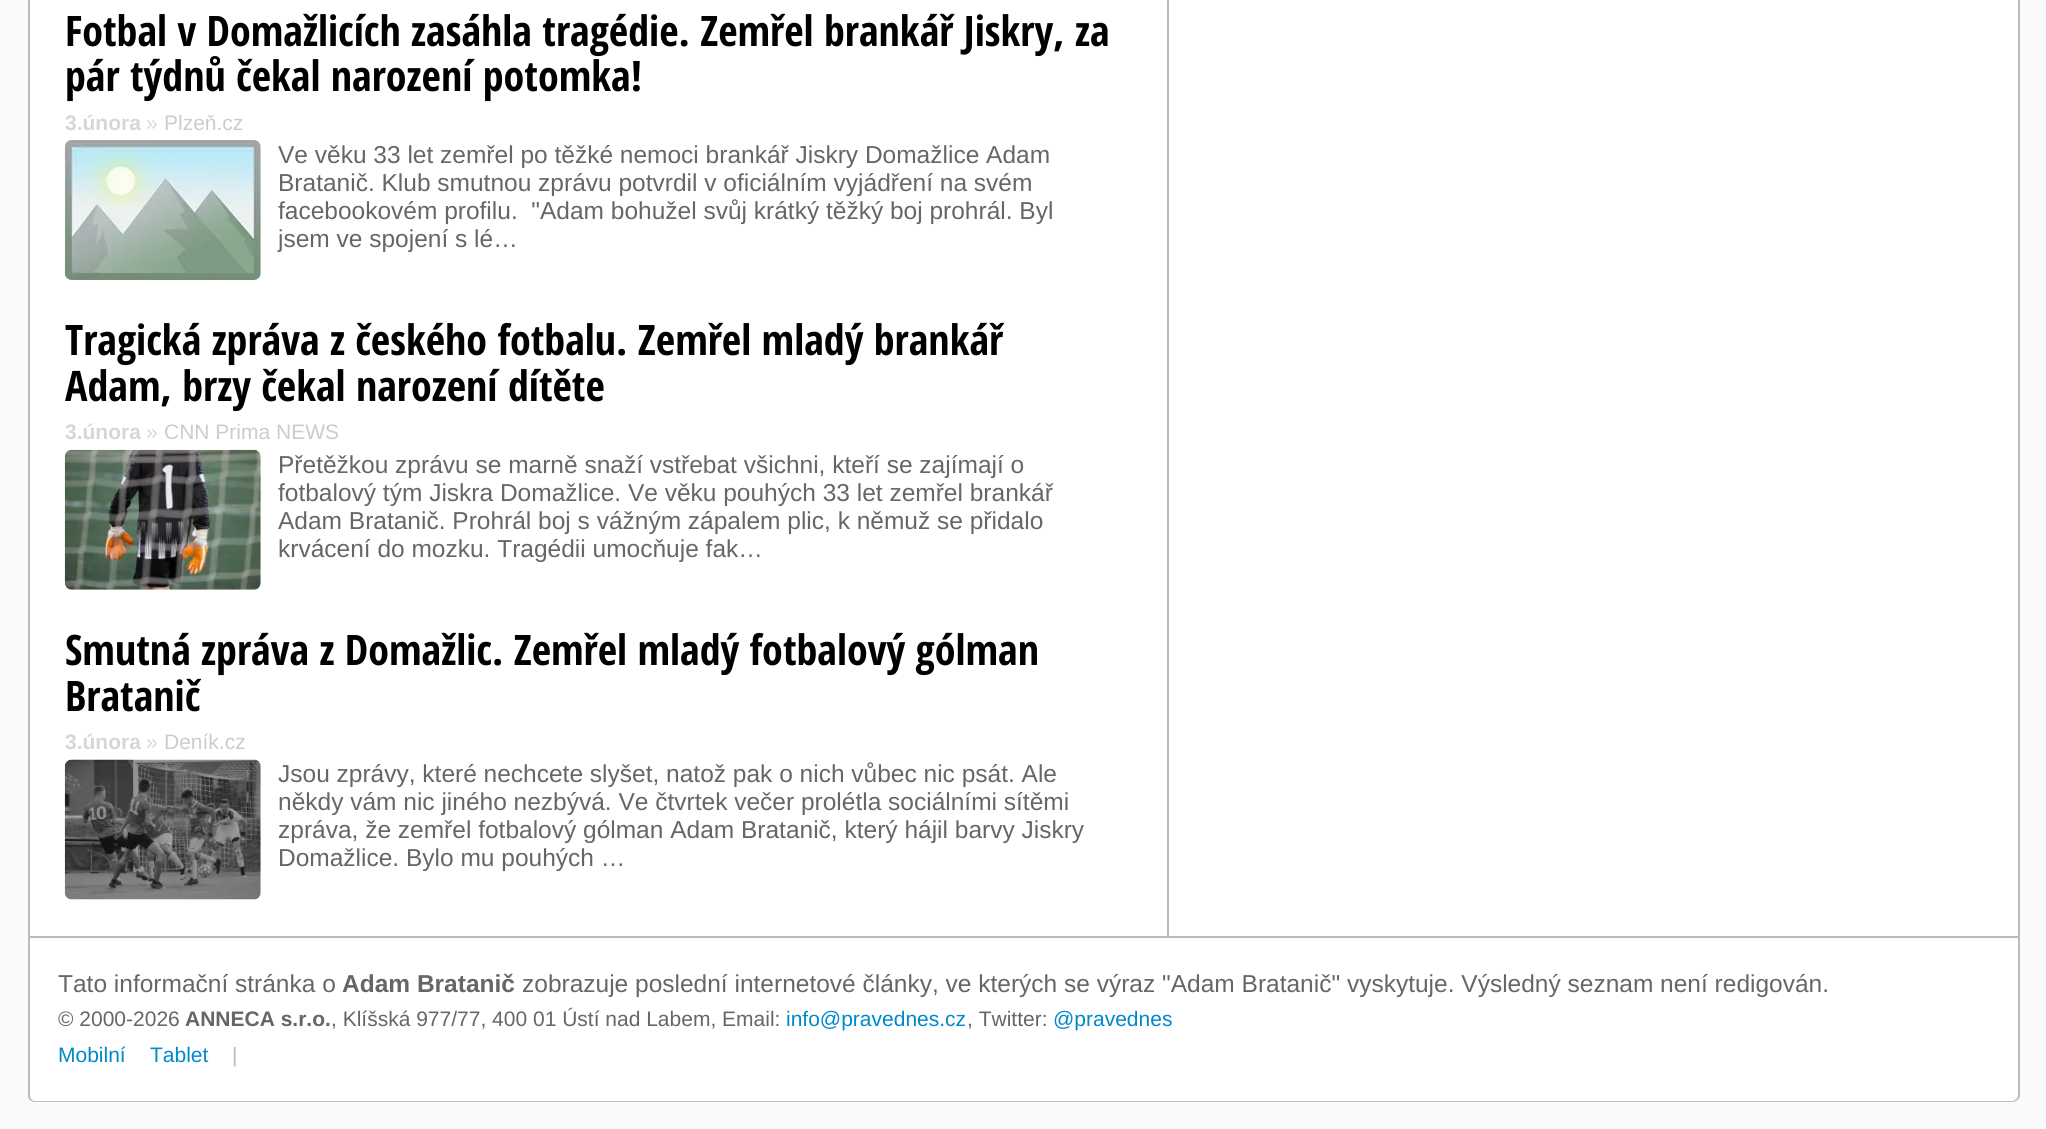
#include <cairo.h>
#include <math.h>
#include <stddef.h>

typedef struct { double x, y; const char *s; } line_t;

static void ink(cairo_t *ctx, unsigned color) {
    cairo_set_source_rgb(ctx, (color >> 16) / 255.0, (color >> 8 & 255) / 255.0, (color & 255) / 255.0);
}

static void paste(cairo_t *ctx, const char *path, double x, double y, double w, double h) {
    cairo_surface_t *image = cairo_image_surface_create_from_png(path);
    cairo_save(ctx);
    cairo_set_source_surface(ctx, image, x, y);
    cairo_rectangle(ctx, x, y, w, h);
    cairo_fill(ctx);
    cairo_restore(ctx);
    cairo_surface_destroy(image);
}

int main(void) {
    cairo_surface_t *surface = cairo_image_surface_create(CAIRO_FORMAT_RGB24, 2046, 1129);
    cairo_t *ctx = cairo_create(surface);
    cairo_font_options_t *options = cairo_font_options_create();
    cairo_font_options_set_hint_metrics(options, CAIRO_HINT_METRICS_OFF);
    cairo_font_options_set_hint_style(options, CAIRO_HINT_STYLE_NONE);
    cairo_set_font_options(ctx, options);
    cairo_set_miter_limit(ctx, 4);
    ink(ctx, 0xFAFAFA);
    cairo_paint(ctx);
    ink(ctx, 0xFFFFFF);
    cairo_new_path(ctx);
    cairo_move_to(ctx, 28, -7);
    cairo_line_to(ctx, 2020, -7);
    cairo_line_to(ctx, 2020, 1096);
    cairo_curve_to(ctx, 2020, 1100, 2017, 1103, 2013, 1103);
    cairo_line_to(ctx, 35, 1103);
    cairo_curve_to(ctx, 31, 1103, 28, 1100, 28, 1096);
    cairo_close_path(ctx);
    cairo_fill(ctx);
    ink(ctx, 0xBBBBBB);
    cairo_set_fill_rule(ctx, CAIRO_FILL_RULE_EVEN_ODD);
    cairo_new_path(ctx);
    cairo_move_to(ctx, 28, -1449);
    cairo_line_to(ctx, 2020, -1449);
    cairo_line_to(ctx, 2020, 1096);
    cairo_curve_to(ctx, 2020, 1099, 2016, 1102, 2012, 1102);
    cairo_line_to(ctx, 35, 1102);
    cairo_curve_to(ctx, 31, 1102, 28, 1099, 28, 1096);
    cairo_close_path(ctx);
    cairo_move_to(ctx, 30, -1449);
    cairo_line_to(ctx, 2018, -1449);
    cairo_line_to(ctx, 2018, 1096);
    cairo_curve_to(ctx, 2018, 1098, 2015, 1101, 2012, 1101);
    cairo_line_to(ctx, 35, 1101);
    cairo_curve_to(ctx, 32, 1101, 30, 1098, 30, 1096);
    cairo_close_path(ctx);
    cairo_fill(ctx);
    cairo_select_font_face(ctx, "Open Sans Condensed", CAIRO_FONT_SLANT_NORMAL, CAIRO_FONT_WEIGHT_BOLD);
    cairo_set_font_size(ctx, 42);
    ink(ctx, 0x000000);
    cairo_move_to(ctx, 65, 46);
    cairo_show_text(ctx, "Fotbal v Domažlicích zasáhla tragédie. Zemřel brankář Jiskry, za");
    cairo_move_to(ctx, 65, 91);
    cairo_show_text(ctx, "pár týdnů čekal narození potomka!");
    cairo_select_font_face(ctx, "Liberation Sans", CAIRO_FONT_SLANT_NORMAL, CAIRO_FONT_WEIGHT_BOLD);
    cairo_set_font_size(ctx, 21);
    ink(ctx, 0xD6D6D6);
    cairo_move_to(ctx, 65, 130);
    cairo_show_text(ctx, "3.února");
    cairo_select_font_face(ctx, "Liberation Sans", CAIRO_FONT_SLANT_NORMAL, CAIRO_FONT_WEIGHT_NORMAL);
    cairo_move_to(ctx, 146, 130);
    cairo_show_text(ctx, "»");
    ink(ctx, 0xCCCCCC);
    cairo_move_to(ctx, 164, 130);
    cairo_show_text(ctx, "Plzeň.cz");
    paste(ctx, "media/1.png", 64, 140, 197, 140);
    cairo_set_font_size(ctx, 24.5);
    ink(ctx, 0x666666);
    {
        static const line_t items[] = {
            {278, 163, "Ve věku 33 let zemřel po těžké nemoci brankář Jiskry Domažlice Adam"},
            {278, 191, "Bratanič. Klub smutnou zprávu potvrdil v oficiálním vyjádření na svém"},
            {278, 219, "facebookovém profilu.  \"Adam bohužel svůj krátký těžký boj prohrál. Byl"},
            {278, 247, "jsem ve spojení s lé…"},
        };
        for (size_t i = 0; i < sizeof items / sizeof *items; i++) {
            cairo_move_to(ctx, items[i].x, items[i].y);
            cairo_show_text(ctx, items[i].s);
        }
    }
    cairo_select_font_face(ctx, "Open Sans Condensed", CAIRO_FONT_SLANT_NORMAL, CAIRO_FONT_WEIGHT_BOLD);
    cairo_set_font_size(ctx, 42);
    ink(ctx, 0x000000);
    cairo_move_to(ctx, 65, 355);
    cairo_show_text(ctx, "Tragická zpráva z českého fotbalu. Zemřel mladý brankář");
    cairo_move_to(ctx, 65, 401);
    cairo_show_text(ctx, "Adam, brzy čekal narození dítěte");
    cairo_select_font_face(ctx, "Liberation Sans", CAIRO_FONT_SLANT_NORMAL, CAIRO_FONT_WEIGHT_BOLD);
    cairo_set_font_size(ctx, 21);
    ink(ctx, 0xD6D6D6);
    cairo_move_to(ctx, 65, 439);
    cairo_show_text(ctx, "3.února");
    cairo_select_font_face(ctx, "Liberation Sans", CAIRO_FONT_SLANT_NORMAL, CAIRO_FONT_WEIGHT_NORMAL);
    cairo_move_to(ctx, 146, 439);
    cairo_show_text(ctx, "»");
    ink(ctx, 0xCCCCCC);
    cairo_move_to(ctx, 164, 439);
    cairo_show_text(ctx, "CNN Prima NEWS");
    paste(ctx, "media/2.png", 64, 449, 197, 141);
    cairo_set_font_size(ctx, 24.5);
    ink(ctx, 0x666666);
    {
        static const line_t items[] = {
            {278, 473, "Přetěžkou zprávu se marně snaží vstřebat všichni, kteří se zajímají o"},
            {278, 501, "fotbalový tým Jiskra Domažlice. Ve věku pouhých 33 let zemřel brankář"},
            {278, 529, "Adam Bratanič. Prohrál boj s vážným zápalem plic, k němuž se přidalo"},
            {278, 557, "krvácení do mozku. Tragédii umocňuje fak…"},
        };
        for (size_t i = 0; i < sizeof items / sizeof *items; i++) {
            cairo_move_to(ctx, items[i].x, items[i].y);
            cairo_show_text(ctx, items[i].s);
        }
    }
    cairo_select_font_face(ctx, "Open Sans Condensed", CAIRO_FONT_SLANT_NORMAL, CAIRO_FONT_WEIGHT_BOLD);
    cairo_set_font_size(ctx, 42);
    ink(ctx, 0x000000);
    cairo_move_to(ctx, 65, 665);
    cairo_show_text(ctx, "Smutná zpráva z Domažlic. Zemřel mladý fotbalový gólman");
    cairo_move_to(ctx, 65, 711);
    cairo_show_text(ctx, "Bratanič");
    cairo_select_font_face(ctx, "Liberation Sans", CAIRO_FONT_SLANT_NORMAL, CAIRO_FONT_WEIGHT_BOLD);
    cairo_set_font_size(ctx, 21);
    ink(ctx, 0xD6D6D6);
    cairo_move_to(ctx, 65, 749);
    cairo_show_text(ctx, "3.února");
    cairo_select_font_face(ctx, "Liberation Sans", CAIRO_FONT_SLANT_NORMAL, CAIRO_FONT_WEIGHT_NORMAL);
    cairo_move_to(ctx, 146, 749);
    cairo_show_text(ctx, "»");
    ink(ctx, 0xCCCCCC);
    cairo_move_to(ctx, 164, 749);
    cairo_show_text(ctx, "Deník.cz");
    paste(ctx, "media/3.png", 64, 759, 197, 141);
    cairo_set_font_size(ctx, 24.5);
    ink(ctx, 0x666666);
    {
        static const line_t items[] = {
            {278, 782, "Jsou zprávy, které nechcete slyšet, natož pak o nich vůbec nic psát. Ale"},
            {278, 810, "někdy vám nic jiného nezbývá. Ve čtvrtek večer prolétla sociálními sítěmi"},
            {278, 838, "zpráva, že zemřel fotbalový gólman Adam Bratanič, který hájil barvy Jiskry"},
            {278, 866, "Domažlice. Bylo mu pouhých …"},
        };
        for (size_t i = 0; i < sizeof items / sizeof *items; i++) {
            cairo_move_to(ctx, items[i].x, items[i].y);
            cairo_show_text(ctx, items[i].s);
        }
    }
    ink(ctx, 0xBBBBBB);
    cairo_rectangle(ctx, 1167, 0, 2, 938);
    cairo_fill(ctx);
    cairo_rectangle(ctx, 30, 936, 1988, 2);
    cairo_fill(ctx);
    ink(ctx, 0x666666);
    cairo_move_to(ctx, 58, 992);
    cairo_show_text(ctx, "Tato informační stránka o");
    cairo_select_font_face(ctx, "Liberation Sans", CAIRO_FONT_SLANT_NORMAL, CAIRO_FONT_WEIGHT_BOLD);
    cairo_move_to(ctx, 342, 992);
    cairo_show_text(ctx, "Adam Bratanič");
    cairo_select_font_face(ctx, "Liberation Sans", CAIRO_FONT_SLANT_NORMAL, CAIRO_FONT_WEIGHT_NORMAL);
    cairo_move_to(ctx, 522, 992);
    cairo_show_text(ctx, "zobrazuje poslední internetové články, ve kterých se výraz \"Adam Bratanič\" vyskytuje. Výsledný seznam není redigován.");
    cairo_set_font_size(ctx, 21);
    cairo_move_to(ctx, 58, 1026);
    cairo_show_text(ctx, "© 2000-2026");
    cairo_select_font_face(ctx, "Liberation Sans", CAIRO_FONT_SLANT_NORMAL, CAIRO_FONT_WEIGHT_BOLD);
    cairo_move_to(ctx, 185, 1026);
    cairo_show_text(ctx, "ANNECA s.r.o.");
    cairo_select_font_face(ctx, "Liberation Sans", CAIRO_FONT_SLANT_NORMAL, CAIRO_FONT_WEIGHT_NORMAL);
    cairo_move_to(ctx, 331, 1026);
    cairo_show_text(ctx, ", Klíšská 977/77, 400 01 Ústí nad Labem, Email:");
    ink(ctx, 0x0088CC);
    cairo_move_to(ctx, 786, 1026);
    cairo_show_text(ctx, "info@pravednes.cz");
    ink(ctx, 0x666666);
    cairo_move_to(ctx, 967, 1026);
    cairo_show_text(ctx, ", Twitter:");
    ink(ctx, 0x0088CC);
    {
        static const line_t items[] = {
            {1053, 1026, "@pravednes"},
            {58, 1062, "Mobilní"},
            {150, 1062, "Tablet"},
        };
        for (size_t i = 0; i < sizeof items / sizeof *items; i++) {
            cairo_move_to(ctx, items[i].x, items[i].y);
            cairo_show_text(ctx, items[i].s);
        }
    }
    ink(ctx, 0xBBBBBB);
    cairo_move_to(ctx, 232, 1062);
    cairo_show_text(ctx, "|");
    cairo_surface_write_to_png(surface, "image.png");
    cairo_font_options_destroy(options);
    cairo_destroy(ctx);
    cairo_surface_destroy(surface);
    return 0;
}
